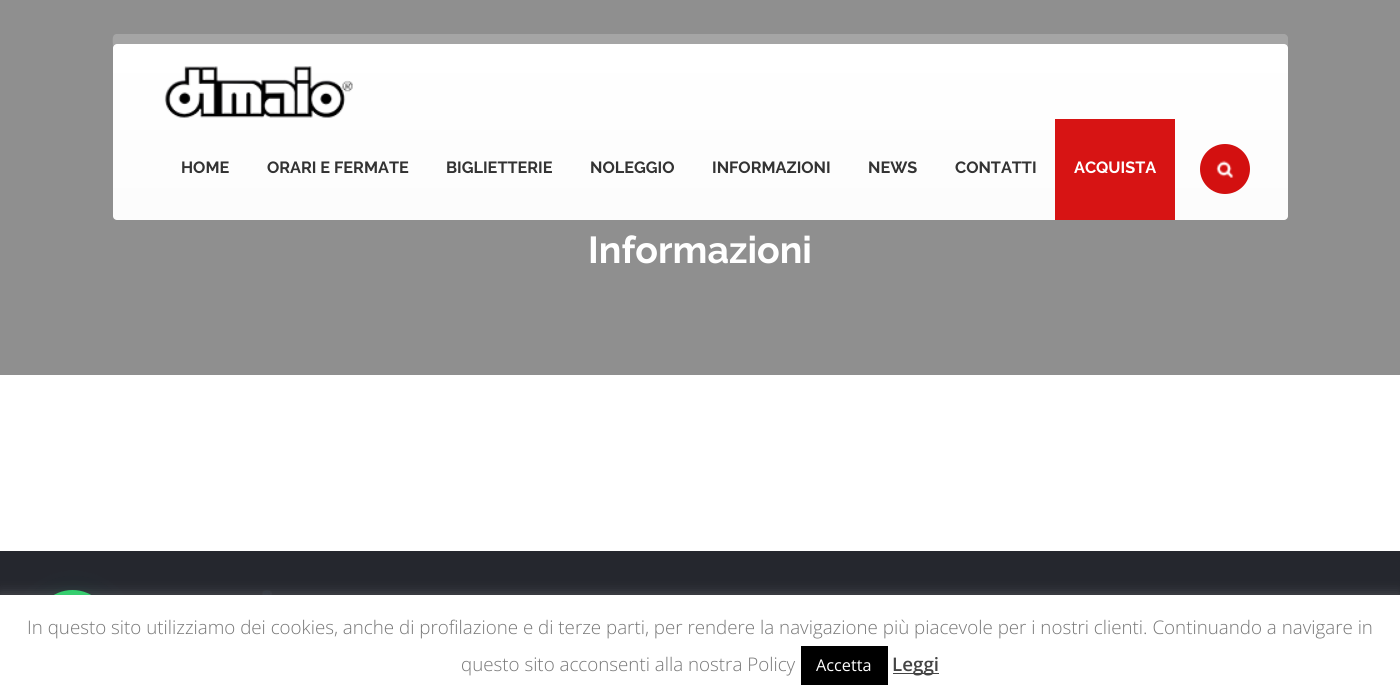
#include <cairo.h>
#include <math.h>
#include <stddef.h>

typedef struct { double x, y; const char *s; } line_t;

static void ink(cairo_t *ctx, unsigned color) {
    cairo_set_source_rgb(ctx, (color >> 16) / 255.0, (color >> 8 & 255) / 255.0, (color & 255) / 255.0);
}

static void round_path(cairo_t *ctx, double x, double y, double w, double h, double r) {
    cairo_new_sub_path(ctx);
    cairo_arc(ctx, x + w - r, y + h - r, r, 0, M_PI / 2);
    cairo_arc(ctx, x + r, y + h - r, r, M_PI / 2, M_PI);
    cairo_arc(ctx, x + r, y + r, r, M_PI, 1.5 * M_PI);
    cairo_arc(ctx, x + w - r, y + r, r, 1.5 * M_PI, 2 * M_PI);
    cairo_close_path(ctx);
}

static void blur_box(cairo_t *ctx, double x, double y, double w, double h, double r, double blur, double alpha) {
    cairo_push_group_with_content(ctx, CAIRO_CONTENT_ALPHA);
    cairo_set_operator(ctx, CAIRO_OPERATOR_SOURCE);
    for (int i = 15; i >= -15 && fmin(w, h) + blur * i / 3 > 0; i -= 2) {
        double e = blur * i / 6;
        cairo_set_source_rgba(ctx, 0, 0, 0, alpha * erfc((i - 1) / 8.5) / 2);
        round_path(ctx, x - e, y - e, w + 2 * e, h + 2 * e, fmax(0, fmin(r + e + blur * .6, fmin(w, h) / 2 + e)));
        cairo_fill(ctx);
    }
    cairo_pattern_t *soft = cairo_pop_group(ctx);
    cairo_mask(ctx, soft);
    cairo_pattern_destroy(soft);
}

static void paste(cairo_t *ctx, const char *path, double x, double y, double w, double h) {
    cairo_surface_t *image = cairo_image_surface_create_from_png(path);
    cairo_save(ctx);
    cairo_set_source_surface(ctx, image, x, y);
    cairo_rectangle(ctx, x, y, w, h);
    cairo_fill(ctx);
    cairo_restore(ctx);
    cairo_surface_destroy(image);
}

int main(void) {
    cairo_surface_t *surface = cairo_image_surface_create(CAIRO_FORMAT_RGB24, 1400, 700);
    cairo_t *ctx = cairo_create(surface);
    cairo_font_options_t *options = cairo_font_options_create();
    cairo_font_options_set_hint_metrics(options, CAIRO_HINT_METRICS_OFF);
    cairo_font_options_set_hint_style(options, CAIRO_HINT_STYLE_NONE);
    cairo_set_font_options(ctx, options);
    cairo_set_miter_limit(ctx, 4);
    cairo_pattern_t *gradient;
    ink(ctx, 0xFFFFFF);
    cairo_paint(ctx);
    ink(ctx, 0x8F8F8F);
    cairo_rectangle(ctx, 0, 0, 1400, 375);
    cairo_fill(ctx);
    ink(ctx, 0xA5A5A5);
    cairo_new_path(ctx);
    cairo_move_to(ctx, 117, 34);
    cairo_curve_to(ctx, 111, 34, 113, 42, 113, 46);
    cairo_curve_to(ctx, 114, 45, 115, 44, 116, 44);
    cairo_line_to(ctx, 1284, 44);
    cairo_curve_to(ctx, 1286, 44, 1288, 45, 1288, 48);
    cairo_line_to(ctx, 1288, 208);
    cairo_line_to(ctx, 1288, 206);
    cairo_line_to(ctx, 1288, 38);
    cairo_curve_to(ctx, 1288, 36, 1286, 34, 1284, 34);
    cairo_close_path(ctx);
    cairo_fill(ctx);
    gradient = cairo_pattern_create_linear(700, 44, 700, 220);
    cairo_pattern_add_color_stop_rgba(gradient, 0, 1, 1, 1, 1);
    cairo_pattern_add_color_stop_rgba(gradient, 1, 0.988, 0.988, 0.988, 1);
    cairo_set_source(ctx, gradient);
    cairo_pattern_destroy(gradient);
    round_path(ctx, 113, 44, 1175, 176, 4);
    cairo_fill(ctx);
    paste(ctx, "media/1.png", 164, 66, 189, 52);
    cairo_select_font_face(ctx, "Raleway Thin", CAIRO_FONT_SLANT_NORMAL, CAIRO_FONT_WEIGHT_NORMAL);
    cairo_set_font_size(ctx, 16.25);
    ink(ctx, 0x333333);
    {
        static const line_t items[] = {
            {181, 173, "HOME"},
            {267, 173, "ORARI E FERMATE"},
            {446, 173, "BIGLIETTERIE"},
            {590, 173, "NOLEGGIO"},
            {712, 173, "INFORMAZIONI"},
            {868, 173, "NEWS"},
            {955, 173, "CONTATTI"},
        };
        for (size_t i = 0; i < sizeof items / sizeof *items; i++) {
            cairo_move_to(ctx, items[i].x, items[i].y);
            cairo_show_text(ctx, items[i].s);
        }
    }
    ink(ctx, 0xD71414);
    cairo_rectangle(ctx, 1055, 119, 120, 101);
    cairo_fill(ctx);
    ink(ctx, 0xFFFFFF);
    cairo_move_to(ctx, 1074, 173);
    cairo_show_text(ctx, "ACQUISTA");
    ink(ctx, 0xD31010);
    cairo_new_path(ctx);
    cairo_arc(ctx, 1225, 169, 25, 0, 2 * M_PI);
    cairo_fill(ctx);
    paste(ctx, "media/2.png", 1216, 160, 18, 18);
    cairo_set_font_size(ctx, 37.5);
    ink(ctx, 0xFFFFFF);
    cairo_move_to(ctx, 588, 263);
    cairo_show_text(ctx, "Informazioni");
    ink(ctx, 0x25272E);
    cairo_rectangle(ctx, 0, 551, 1400, 44);
    cairo_fill(ctx);
    paste(ctx, "media/3.png", 262, 590, 10, 5);
    ink(ctx, 0x075E54);
    blur_box(ctx, 36, 598, 75, 75, 37.5, 15, 0.24);
    ink(ctx, 0x25D366);
    cairo_arc(ctx, 72.5, 627.5, 37.5, 0, 2 * M_PI);
    cairo_fill(ctx);
    ink(ctx, 0xACABAB);
    blur_box(ctx, 0, 594, 1400, 105, 0, 6, 0.3);
    ink(ctx, 0xFFFFFF);
    cairo_rectangle(ctx, 0, 595, 1400, 105);
    cairo_fill(ctx);
    cairo_select_font_face(ctx, "Open Sans Light", CAIRO_FONT_SLANT_NORMAL, CAIRO_FONT_WEIGHT_NORMAL);
    cairo_set_font_size(ctx, 18.75);
    ink(ctx, 0x777777);
    cairo_move_to(ctx, 27, 634);
    cairo_show_text(ctx, "In questo sito utilizziamo dei cookies, anche di profilazione e di terze parti, per rendere la navigazione più piacevole per i nostri clienti. Continuando a navigare in");
    cairo_move_to(ctx, 461, 671);
    cairo_show_text(ctx, "questo sito acconsenti alla nostra Policy");
    ink(ctx, 0x000000);
    cairo_rectangle(ctx, 801, 646, 87, 39);
    cairo_fill(ctx);
    cairo_select_font_face(ctx, "Open Sans", CAIRO_FONT_SLANT_NORMAL, CAIRO_FONT_WEIGHT_NORMAL);
    cairo_set_font_size(ctx, 16.25);
    ink(ctx, 0xFFFFFF);
    cairo_move_to(ctx, 816, 671);
    cairo_show_text(ctx, "Accetta");
    ink(ctx, 0x444444);
    cairo_rectangle(ctx, 893, 673, 46, 1);
    cairo_fill(ctx);
    cairo_select_font_face(ctx, "Open Sans SemiBold", CAIRO_FONT_SLANT_NORMAL, CAIRO_FONT_WEIGHT_NORMAL);
    cairo_set_font_size(ctx, 18.75);
    cairo_move_to(ctx, 892, 671);
    cairo_show_text(ctx, "Leggi");
    cairo_surface_write_to_png(surface, "image.png");
    cairo_font_options_destroy(options);
    cairo_destroy(ctx);
    cairo_surface_destroy(surface);
    return 0;
}
